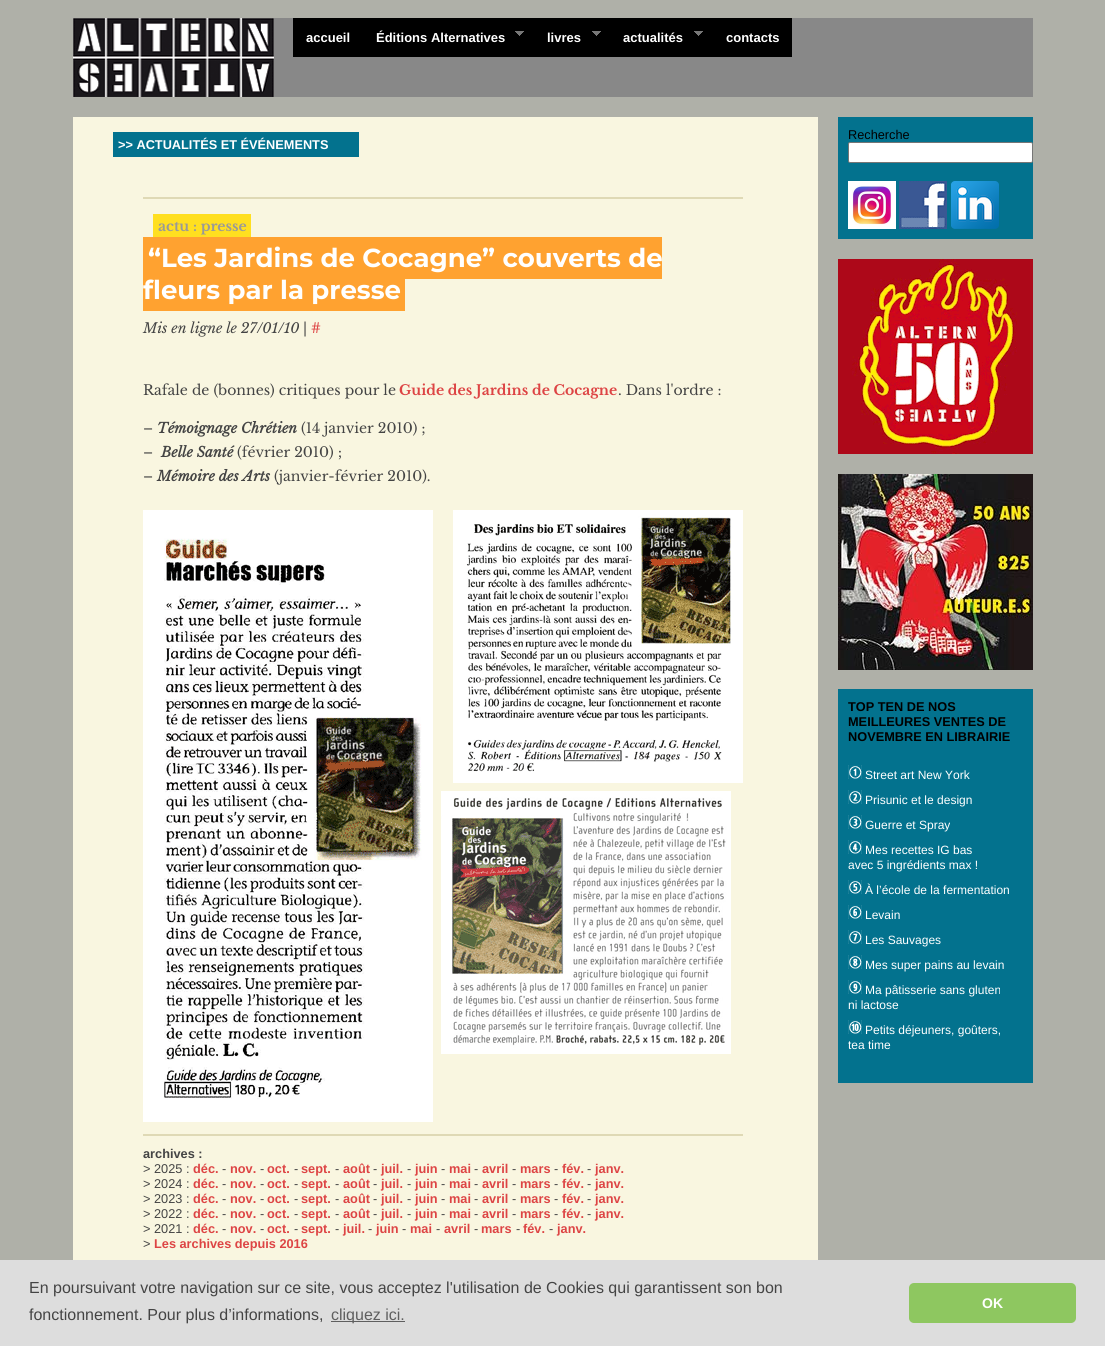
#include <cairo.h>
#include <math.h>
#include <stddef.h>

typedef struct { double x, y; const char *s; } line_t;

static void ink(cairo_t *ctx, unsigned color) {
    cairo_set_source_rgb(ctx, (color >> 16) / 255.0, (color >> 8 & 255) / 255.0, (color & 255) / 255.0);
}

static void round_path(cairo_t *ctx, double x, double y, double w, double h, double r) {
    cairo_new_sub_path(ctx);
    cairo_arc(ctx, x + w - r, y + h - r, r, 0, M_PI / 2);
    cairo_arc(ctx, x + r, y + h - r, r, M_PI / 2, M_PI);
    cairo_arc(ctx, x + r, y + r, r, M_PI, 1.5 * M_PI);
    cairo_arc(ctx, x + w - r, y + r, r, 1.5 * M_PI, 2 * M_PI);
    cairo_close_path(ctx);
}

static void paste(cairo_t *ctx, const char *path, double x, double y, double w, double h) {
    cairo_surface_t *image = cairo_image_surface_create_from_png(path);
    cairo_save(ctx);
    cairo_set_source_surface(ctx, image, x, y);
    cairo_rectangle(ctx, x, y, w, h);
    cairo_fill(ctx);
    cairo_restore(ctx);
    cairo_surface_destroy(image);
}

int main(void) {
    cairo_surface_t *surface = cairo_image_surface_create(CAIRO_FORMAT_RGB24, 1105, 1346);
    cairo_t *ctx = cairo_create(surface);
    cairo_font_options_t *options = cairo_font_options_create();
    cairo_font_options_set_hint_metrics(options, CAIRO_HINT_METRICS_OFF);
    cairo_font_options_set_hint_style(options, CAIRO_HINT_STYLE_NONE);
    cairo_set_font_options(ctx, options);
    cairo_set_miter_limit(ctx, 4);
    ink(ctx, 0xAFB0A8);
    cairo_paint(ctx);
    ink(ctx, 0x888888);
    cairo_rectangle(ctx, 274, 18, 759, 79);
    cairo_fill(ctx);
    paste(ctx, "media/1.png", 73, 18, 201, 79);
    ink(ctx, 0x000000);
    cairo_rectangle(ctx, 293, 18, 499, 39);
    cairo_fill(ctx);
    cairo_select_font_face(ctx, "Liberation Sans", CAIRO_FONT_SLANT_NORMAL, CAIRO_FONT_WEIGHT_BOLD);
    cairo_set_font_size(ctx, 13);
    ink(ctx, 0xFFFFFF);
    cairo_move_to(ctx, 306, 42);
    cairo_show_text(ctx, "accueil");
    cairo_move_to(ctx, 376, 42);
    cairo_show_text(ctx, "Éditions Alternatives");
    paste(ctx, "media/2.png", 515, 31, 9, 5);
    cairo_move_to(ctx, 547, 42);
    cairo_show_text(ctx, "livres");
    paste(ctx, "media/2.png", 592, 31, 9, 5);
    cairo_move_to(ctx, 623, 42);
    cairo_show_text(ctx, "actualités");
    paste(ctx, "media/2.png", 694, 31, 9, 5);
    cairo_move_to(ctx, 726, 42);
    cairo_show_text(ctx, "contacts");
    ink(ctx, 0xF9F6E0);
    cairo_rectangle(ctx, 73, 117, 745, 1143);
    cairo_fill(ctx);
    ink(ctx, 0x03728E);
    cairo_rectangle(ctx, 113, 132, 246, 25);
    cairo_fill(ctx);
    cairo_set_font_size(ctx, 12.75);
    ink(ctx, 0xFFFFFF);
    cairo_move_to(ctx, 118, 149);
    cairo_show_text(ctx, ">> ACTUALITÉS ET ÉVÉNEMENTS");
    ink(ctx, 0xDFD9B5);
    cairo_rectangle(ctx, 143, 197, 600, 2);
    cairo_fill(ctx);
    ink(ctx, 0xFFDF20);
    cairo_rectangle(ctx, 153, 214, 98, 23);
    cairo_fill(ctx);
    cairo_select_font_face(ctx, "Libre Baskerville", CAIRO_FONT_SLANT_NORMAL, CAIRO_FONT_WEIGHT_BOLD);
    cairo_set_font_size(ctx, 14);
    ink(ctx, 0x999999);
    cairo_move_to(ctx, 158, 231);
    cairo_show_text(ctx, "actu : presse");
    ink(ctx, 0xFFA230);
    cairo_rectangle(ctx, 143, 237, 519, 42);
    cairo_fill(ctx);
    cairo_select_font_face(ctx, "Montserrat", CAIRO_FONT_SLANT_NORMAL, CAIRO_FONT_WEIGHT_BOLD);
    cairo_set_font_size(ctx, 26);
    ink(ctx, 0xFFFFFF);
    cairo_move_to(ctx, 148, 267);
    cairo_show_text(ctx, "“Les Jardins de Cocagne” couverts de");
    ink(ctx, 0xFFA230);
    cairo_rectangle(ctx, 143, 279, 262, 32);
    cairo_fill(ctx);
    ink(ctx, 0xFFFFFF);
    cairo_move_to(ctx, 143, 299);
    cairo_show_text(ctx, "fleurs par la presse");
    cairo_select_font_face(ctx, "Libre Baskerville", CAIRO_FONT_SLANT_ITALIC, CAIRO_FONT_WEIGHT_NORMAL);
    cairo_set_font_size(ctx, 14);
    ink(ctx, 0x444444);
    cairo_move_to(ctx, 143, 333);
    cairo_show_text(ctx, "Mis en ligne le 27/01/10");
    cairo_select_font_face(ctx, "Libre Baskerville", CAIRO_FONT_SLANT_NORMAL, CAIRO_FONT_WEIGHT_NORMAL);
    cairo_move_to(ctx, 303, 333);
    cairo_show_text(ctx, "|");
    cairo_select_font_face(ctx, "Libre Baskerville", CAIRO_FONT_SLANT_NORMAL, CAIRO_FONT_WEIGHT_BOLD);
    ink(ctx, 0xDD4444);
    cairo_move_to(ctx, 311, 333);
    cairo_show_text(ctx, "#");
    cairo_select_font_face(ctx, "Libre Baskerville", CAIRO_FONT_SLANT_NORMAL, CAIRO_FONT_WEIGHT_NORMAL);
    ink(ctx, 0x444444);
    cairo_move_to(ctx, 143, 395);
    cairo_show_text(ctx, "Rafale de (bonnes) critiques pour le");
    cairo_select_font_face(ctx, "Libre Baskerville", CAIRO_FONT_SLANT_NORMAL, CAIRO_FONT_WEIGHT_BOLD);
    ink(ctx, 0xDD4444);
    cairo_move_to(ctx, 399, 395);
    cairo_show_text(ctx, "Guide des Jardins de Cocagne");
    cairo_select_font_face(ctx, "Libre Baskerville", CAIRO_FONT_SLANT_NORMAL, CAIRO_FONT_WEIGHT_NORMAL);
    ink(ctx, 0x444444);
    cairo_move_to(ctx, 618, 395);
    cairo_show_text(ctx, ". Dans l'ordre :");
    cairo_move_to(ctx, 143, 433);
    cairo_show_text(ctx, "–");
    cairo_select_font_face(ctx, "Libre Baskerville", CAIRO_FONT_SLANT_ITALIC, CAIRO_FONT_WEIGHT_BOLD);
    cairo_move_to(ctx, 157, 433);
    cairo_show_text(ctx, "Témoignage Chrétien");
    cairo_select_font_face(ctx, "Libre Baskerville", CAIRO_FONT_SLANT_NORMAL, CAIRO_FONT_WEIGHT_NORMAL);
    cairo_move_to(ctx, 301, 433);
    cairo_show_text(ctx, "(14 janvier 2010) ;");
    cairo_move_to(ctx, 143, 457);
    cairo_show_text(ctx, "–");
    cairo_select_font_face(ctx, "Libre Baskerville", CAIRO_FONT_SLANT_ITALIC, CAIRO_FONT_WEIGHT_BOLD);
    cairo_move_to(ctx, 161, 457);
    cairo_show_text(ctx, "Belle Santé");
    cairo_select_font_face(ctx, "Libre Baskerville", CAIRO_FONT_SLANT_NORMAL, CAIRO_FONT_WEIGHT_NORMAL);
    cairo_move_to(ctx, 237, 457);
    cairo_show_text(ctx, "(février 2010) ;");
    cairo_move_to(ctx, 143, 481);
    cairo_show_text(ctx, "–");
    cairo_select_font_face(ctx, "Libre Baskerville", CAIRO_FONT_SLANT_ITALIC, CAIRO_FONT_WEIGHT_BOLD);
    cairo_move_to(ctx, 157, 481);
    cairo_show_text(ctx, "Mémoire des Arts");
    cairo_select_font_face(ctx, "Libre Baskerville", CAIRO_FONT_SLANT_NORMAL, CAIRO_FONT_WEIGHT_NORMAL);
    cairo_move_to(ctx, 274, 481);
    cairo_show_text(ctx, "(janvier-février 2010).");
    paste(ctx, "media/3.png", 143, 510, 290, 612);
    paste(ctx, "media/4.png", 453, 510, 290, 273);
    paste(ctx, "media/5.png", 441, 791, 290, 263);
    ink(ctx, 0xDFD9B5);
    cairo_rectangle(ctx, 143, 1134, 600, 2);
    cairo_fill(ctx);
    cairo_select_font_face(ctx, "Liberation Sans", CAIRO_FONT_SLANT_NORMAL, CAIRO_FONT_WEIGHT_BOLD);
    cairo_set_font_size(ctx, 12.75);
    ink(ctx, 0x444444);
    cairo_move_to(ctx, 143, 1158);
    cairo_show_text(ctx, "archives :");
    cairo_select_font_face(ctx, "Liberation Sans", CAIRO_FONT_SLANT_NORMAL, CAIRO_FONT_WEIGHT_NORMAL);
    cairo_move_to(ctx, 143, 1173);
    cairo_show_text(ctx, "> 2025 :");
    cairo_select_font_face(ctx, "Liberation Sans", CAIRO_FONT_SLANT_NORMAL, CAIRO_FONT_WEIGHT_BOLD);
    ink(ctx, 0xDD4444);
    cairo_move_to(ctx, 193, 1173);
    cairo_show_text(ctx, "déc.");
    cairo_select_font_face(ctx, "Liberation Sans", CAIRO_FONT_SLANT_NORMAL, CAIRO_FONT_WEIGHT_NORMAL);
    ink(ctx, 0x444444);
    cairo_move_to(ctx, 222, 1173);
    cairo_show_text(ctx, "-");
    cairo_select_font_face(ctx, "Liberation Sans", CAIRO_FONT_SLANT_NORMAL, CAIRO_FONT_WEIGHT_BOLD);
    ink(ctx, 0xDD4444);
    cairo_move_to(ctx, 230, 1173);
    cairo_show_text(ctx, "nov.");
    cairo_select_font_face(ctx, "Liberation Sans", CAIRO_FONT_SLANT_NORMAL, CAIRO_FONT_WEIGHT_NORMAL);
    ink(ctx, 0x444444);
    cairo_move_to(ctx, 260, 1173);
    cairo_show_text(ctx, "-");
    cairo_select_font_face(ctx, "Liberation Sans", CAIRO_FONT_SLANT_NORMAL, CAIRO_FONT_WEIGHT_BOLD);
    ink(ctx, 0xDD4444);
    cairo_move_to(ctx, 267, 1173);
    cairo_show_text(ctx, "oct.");
    cairo_select_font_face(ctx, "Liberation Sans", CAIRO_FONT_SLANT_NORMAL, CAIRO_FONT_WEIGHT_NORMAL);
    ink(ctx, 0x444444);
    cairo_move_to(ctx, 294, 1173);
    cairo_show_text(ctx, "-");
    cairo_select_font_face(ctx, "Liberation Sans", CAIRO_FONT_SLANT_NORMAL, CAIRO_FONT_WEIGHT_BOLD);
    ink(ctx, 0xDD4444);
    cairo_move_to(ctx, 301, 1173);
    cairo_show_text(ctx, "sept.");
    cairo_select_font_face(ctx, "Liberation Sans", CAIRO_FONT_SLANT_NORMAL, CAIRO_FONT_WEIGHT_NORMAL);
    ink(ctx, 0x444444);
    cairo_move_to(ctx, 335, 1173);
    cairo_show_text(ctx, "-");
    cairo_select_font_face(ctx, "Liberation Sans", CAIRO_FONT_SLANT_NORMAL, CAIRO_FONT_WEIGHT_BOLD);
    ink(ctx, 0xDD4444);
    cairo_move_to(ctx, 343, 1173);
    cairo_show_text(ctx, "août");
    cairo_select_font_face(ctx, "Liberation Sans", CAIRO_FONT_SLANT_NORMAL, CAIRO_FONT_WEIGHT_NORMAL);
    ink(ctx, 0x444444);
    cairo_move_to(ctx, 373, 1173);
    cairo_show_text(ctx, "-");
    cairo_select_font_face(ctx, "Liberation Sans", CAIRO_FONT_SLANT_NORMAL, CAIRO_FONT_WEIGHT_BOLD);
    ink(ctx, 0xDD4444);
    cairo_move_to(ctx, 381, 1173);
    cairo_show_text(ctx, "juil.");
    cairo_select_font_face(ctx, "Liberation Sans", CAIRO_FONT_SLANT_NORMAL, CAIRO_FONT_WEIGHT_NORMAL);
    ink(ctx, 0x444444);
    cairo_move_to(ctx, 407, 1173);
    cairo_show_text(ctx, "-");
    cairo_select_font_face(ctx, "Liberation Sans", CAIRO_FONT_SLANT_NORMAL, CAIRO_FONT_WEIGHT_BOLD);
    ink(ctx, 0xDD4444);
    cairo_move_to(ctx, 415, 1173);
    cairo_show_text(ctx, "juin");
    cairo_select_font_face(ctx, "Liberation Sans", CAIRO_FONT_SLANT_NORMAL, CAIRO_FONT_WEIGHT_NORMAL);
    ink(ctx, 0x444444);
    cairo_move_to(ctx, 441, 1173);
    cairo_show_text(ctx, "-");
    cairo_select_font_face(ctx, "Liberation Sans", CAIRO_FONT_SLANT_NORMAL, CAIRO_FONT_WEIGHT_BOLD);
    ink(ctx, 0xDD4444);
    cairo_move_to(ctx, 449, 1173);
    cairo_show_text(ctx, "mai");
    cairo_select_font_face(ctx, "Liberation Sans", CAIRO_FONT_SLANT_NORMAL, CAIRO_FONT_WEIGHT_NORMAL);
    ink(ctx, 0x444444);
    cairo_move_to(ctx, 474, 1173);
    cairo_show_text(ctx, "-");
    cairo_select_font_face(ctx, "Liberation Sans", CAIRO_FONT_SLANT_NORMAL, CAIRO_FONT_WEIGHT_BOLD);
    ink(ctx, 0xDD4444);
    cairo_move_to(ctx, 482, 1173);
    cairo_show_text(ctx, "avril");
    cairo_select_font_face(ctx, "Liberation Sans", CAIRO_FONT_SLANT_NORMAL, CAIRO_FONT_WEIGHT_NORMAL);
    ink(ctx, 0x444444);
    cairo_move_to(ctx, 512, 1173);
    cairo_show_text(ctx, "-");
    cairo_select_font_face(ctx, "Liberation Sans", CAIRO_FONT_SLANT_NORMAL, CAIRO_FONT_WEIGHT_BOLD);
    ink(ctx, 0xDD4444);
    cairo_move_to(ctx, 520, 1173);
    cairo_show_text(ctx, "mars");
    cairo_select_font_face(ctx, "Liberation Sans", CAIRO_FONT_SLANT_NORMAL, CAIRO_FONT_WEIGHT_NORMAL);
    ink(ctx, 0x444444);
    cairo_move_to(ctx, 554, 1173);
    cairo_show_text(ctx, "-");
    cairo_select_font_face(ctx, "Liberation Sans", CAIRO_FONT_SLANT_NORMAL, CAIRO_FONT_WEIGHT_BOLD);
    ink(ctx, 0xDD4444);
    cairo_move_to(ctx, 562, 1173);
    cairo_show_text(ctx, "fév.");
    cairo_select_font_face(ctx, "Liberation Sans", CAIRO_FONT_SLANT_NORMAL, CAIRO_FONT_WEIGHT_NORMAL);
    ink(ctx, 0x444444);
    cairo_move_to(ctx, 587, 1173);
    cairo_show_text(ctx, "-");
    cairo_select_font_face(ctx, "Liberation Sans", CAIRO_FONT_SLANT_NORMAL, CAIRO_FONT_WEIGHT_BOLD);
    ink(ctx, 0xDD4444);
    cairo_move_to(ctx, 595, 1173);
    cairo_show_text(ctx, "janv.");
    cairo_select_font_face(ctx, "Liberation Sans", CAIRO_FONT_SLANT_NORMAL, CAIRO_FONT_WEIGHT_NORMAL);
    ink(ctx, 0x444444);
    cairo_move_to(ctx, 143, 1188);
    cairo_show_text(ctx, "> 2024 :");
    cairo_select_font_face(ctx, "Liberation Sans", CAIRO_FONT_SLANT_NORMAL, CAIRO_FONT_WEIGHT_BOLD);
    ink(ctx, 0xDD4444);
    cairo_move_to(ctx, 193, 1188);
    cairo_show_text(ctx, "déc.");
    cairo_select_font_face(ctx, "Liberation Sans", CAIRO_FONT_SLANT_NORMAL, CAIRO_FONT_WEIGHT_NORMAL);
    ink(ctx, 0x444444);
    cairo_move_to(ctx, 222, 1188);
    cairo_show_text(ctx, "-");
    cairo_select_font_face(ctx, "Liberation Sans", CAIRO_FONT_SLANT_NORMAL, CAIRO_FONT_WEIGHT_BOLD);
    ink(ctx, 0xDD4444);
    cairo_move_to(ctx, 230, 1188);
    cairo_show_text(ctx, "nov.");
    cairo_select_font_face(ctx, "Liberation Sans", CAIRO_FONT_SLANT_NORMAL, CAIRO_FONT_WEIGHT_NORMAL);
    ink(ctx, 0x444444);
    cairo_move_to(ctx, 260, 1188);
    cairo_show_text(ctx, "-");
    cairo_select_font_face(ctx, "Liberation Sans", CAIRO_FONT_SLANT_NORMAL, CAIRO_FONT_WEIGHT_BOLD);
    ink(ctx, 0xDD4444);
    cairo_move_to(ctx, 267, 1188);
    cairo_show_text(ctx, "oct.");
    cairo_select_font_face(ctx, "Liberation Sans", CAIRO_FONT_SLANT_NORMAL, CAIRO_FONT_WEIGHT_NORMAL);
    ink(ctx, 0x444444);
    cairo_move_to(ctx, 294, 1188);
    cairo_show_text(ctx, "-");
    cairo_select_font_face(ctx, "Liberation Sans", CAIRO_FONT_SLANT_NORMAL, CAIRO_FONT_WEIGHT_BOLD);
    ink(ctx, 0xDD4444);
    cairo_move_to(ctx, 301, 1188);
    cairo_show_text(ctx, "sept.");
    cairo_select_font_face(ctx, "Liberation Sans", CAIRO_FONT_SLANT_NORMAL, CAIRO_FONT_WEIGHT_NORMAL);
    ink(ctx, 0x444444);
    cairo_move_to(ctx, 335, 1188);
    cairo_show_text(ctx, "-");
    cairo_select_font_face(ctx, "Liberation Sans", CAIRO_FONT_SLANT_NORMAL, CAIRO_FONT_WEIGHT_BOLD);
    ink(ctx, 0xDD4444);
    cairo_move_to(ctx, 343, 1188);
    cairo_show_text(ctx, "août");
    cairo_select_font_face(ctx, "Liberation Sans", CAIRO_FONT_SLANT_NORMAL, CAIRO_FONT_WEIGHT_NORMAL);
    ink(ctx, 0x444444);
    cairo_move_to(ctx, 373, 1188);
    cairo_show_text(ctx, "-");
    cairo_select_font_face(ctx, "Liberation Sans", CAIRO_FONT_SLANT_NORMAL, CAIRO_FONT_WEIGHT_BOLD);
    ink(ctx, 0xDD4444);
    cairo_move_to(ctx, 381, 1188);
    cairo_show_text(ctx, "juil.");
    cairo_select_font_face(ctx, "Liberation Sans", CAIRO_FONT_SLANT_NORMAL, CAIRO_FONT_WEIGHT_NORMAL);
    ink(ctx, 0x444444);
    cairo_move_to(ctx, 407, 1188);
    cairo_show_text(ctx, "-");
    cairo_select_font_face(ctx, "Liberation Sans", CAIRO_FONT_SLANT_NORMAL, CAIRO_FONT_WEIGHT_BOLD);
    ink(ctx, 0xDD4444);
    cairo_move_to(ctx, 415, 1188);
    cairo_show_text(ctx, "juin");
    cairo_select_font_face(ctx, "Liberation Sans", CAIRO_FONT_SLANT_NORMAL, CAIRO_FONT_WEIGHT_NORMAL);
    ink(ctx, 0x444444);
    cairo_move_to(ctx, 441, 1188);
    cairo_show_text(ctx, "-");
    cairo_select_font_face(ctx, "Liberation Sans", CAIRO_FONT_SLANT_NORMAL, CAIRO_FONT_WEIGHT_BOLD);
    ink(ctx, 0xDD4444);
    cairo_move_to(ctx, 449, 1188);
    cairo_show_text(ctx, "mai");
    cairo_select_font_face(ctx, "Liberation Sans", CAIRO_FONT_SLANT_NORMAL, CAIRO_FONT_WEIGHT_NORMAL);
    ink(ctx, 0x444444);
    cairo_move_to(ctx, 474, 1188);
    cairo_show_text(ctx, "-");
    cairo_select_font_face(ctx, "Liberation Sans", CAIRO_FONT_SLANT_NORMAL, CAIRO_FONT_WEIGHT_BOLD);
    ink(ctx, 0xDD4444);
    cairo_move_to(ctx, 482, 1188);
    cairo_show_text(ctx, "avril");
    cairo_select_font_face(ctx, "Liberation Sans", CAIRO_FONT_SLANT_NORMAL, CAIRO_FONT_WEIGHT_NORMAL);
    ink(ctx, 0x444444);
    cairo_move_to(ctx, 512, 1188);
    cairo_show_text(ctx, "-");
    cairo_select_font_face(ctx, "Liberation Sans", CAIRO_FONT_SLANT_NORMAL, CAIRO_FONT_WEIGHT_BOLD);
    ink(ctx, 0xDD4444);
    cairo_move_to(ctx, 520, 1188);
    cairo_show_text(ctx, "mars");
    cairo_select_font_face(ctx, "Liberation Sans", CAIRO_FONT_SLANT_NORMAL, CAIRO_FONT_WEIGHT_NORMAL);
    ink(ctx, 0x444444);
    cairo_move_to(ctx, 554, 1188);
    cairo_show_text(ctx, "-");
    cairo_select_font_face(ctx, "Liberation Sans", CAIRO_FONT_SLANT_NORMAL, CAIRO_FONT_WEIGHT_BOLD);
    ink(ctx, 0xDD4444);
    cairo_move_to(ctx, 562, 1188);
    cairo_show_text(ctx, "fév.");
    cairo_select_font_face(ctx, "Liberation Sans", CAIRO_FONT_SLANT_NORMAL, CAIRO_FONT_WEIGHT_NORMAL);
    ink(ctx, 0x444444);
    cairo_move_to(ctx, 587, 1188);
    cairo_show_text(ctx, "-");
    cairo_select_font_face(ctx, "Liberation Sans", CAIRO_FONT_SLANT_NORMAL, CAIRO_FONT_WEIGHT_BOLD);
    ink(ctx, 0xDD4444);
    cairo_move_to(ctx, 595, 1188);
    cairo_show_text(ctx, "janv.");
    cairo_select_font_face(ctx, "Liberation Sans", CAIRO_FONT_SLANT_NORMAL, CAIRO_FONT_WEIGHT_NORMAL);
    ink(ctx, 0x444444);
    cairo_move_to(ctx, 143, 1203);
    cairo_show_text(ctx, "> 2023 :");
    cairo_select_font_face(ctx, "Liberation Sans", CAIRO_FONT_SLANT_NORMAL, CAIRO_FONT_WEIGHT_BOLD);
    ink(ctx, 0xDD4444);
    cairo_move_to(ctx, 193, 1203);
    cairo_show_text(ctx, "déc.");
    cairo_select_font_face(ctx, "Liberation Sans", CAIRO_FONT_SLANT_NORMAL, CAIRO_FONT_WEIGHT_NORMAL);
    ink(ctx, 0x444444);
    cairo_move_to(ctx, 222, 1203);
    cairo_show_text(ctx, "-");
    cairo_select_font_face(ctx, "Liberation Sans", CAIRO_FONT_SLANT_NORMAL, CAIRO_FONT_WEIGHT_BOLD);
    ink(ctx, 0xDD4444);
    cairo_move_to(ctx, 230, 1203);
    cairo_show_text(ctx, "nov.");
    cairo_select_font_face(ctx, "Liberation Sans", CAIRO_FONT_SLANT_NORMAL, CAIRO_FONT_WEIGHT_NORMAL);
    ink(ctx, 0x444444);
    cairo_move_to(ctx, 260, 1203);
    cairo_show_text(ctx, "-");
    cairo_select_font_face(ctx, "Liberation Sans", CAIRO_FONT_SLANT_NORMAL, CAIRO_FONT_WEIGHT_BOLD);
    ink(ctx, 0xDD4444);
    cairo_move_to(ctx, 267, 1203);
    cairo_show_text(ctx, "oct.");
    cairo_select_font_face(ctx, "Liberation Sans", CAIRO_FONT_SLANT_NORMAL, CAIRO_FONT_WEIGHT_NORMAL);
    ink(ctx, 0x444444);
    cairo_move_to(ctx, 294, 1203);
    cairo_show_text(ctx, "-");
    cairo_select_font_face(ctx, "Liberation Sans", CAIRO_FONT_SLANT_NORMAL, CAIRO_FONT_WEIGHT_BOLD);
    ink(ctx, 0xDD4444);
    cairo_move_to(ctx, 301, 1203);
    cairo_show_text(ctx, "sept.");
    cairo_select_font_face(ctx, "Liberation Sans", CAIRO_FONT_SLANT_NORMAL, CAIRO_FONT_WEIGHT_NORMAL);
    ink(ctx, 0x444444);
    cairo_move_to(ctx, 335, 1203);
    cairo_show_text(ctx, "-");
    cairo_select_font_face(ctx, "Liberation Sans", CAIRO_FONT_SLANT_NORMAL, CAIRO_FONT_WEIGHT_BOLD);
    ink(ctx, 0xDD4444);
    cairo_move_to(ctx, 343, 1203);
    cairo_show_text(ctx, "août");
    cairo_select_font_face(ctx, "Liberation Sans", CAIRO_FONT_SLANT_NORMAL, CAIRO_FONT_WEIGHT_NORMAL);
    ink(ctx, 0x444444);
    cairo_move_to(ctx, 373, 1203);
    cairo_show_text(ctx, "-");
    cairo_select_font_face(ctx, "Liberation Sans", CAIRO_FONT_SLANT_NORMAL, CAIRO_FONT_WEIGHT_BOLD);
    ink(ctx, 0xDD4444);
    cairo_move_to(ctx, 381, 1203);
    cairo_show_text(ctx, "juil.");
    cairo_select_font_face(ctx, "Liberation Sans", CAIRO_FONT_SLANT_NORMAL, CAIRO_FONT_WEIGHT_NORMAL);
    ink(ctx, 0x444444);
    cairo_move_to(ctx, 407, 1203);
    cairo_show_text(ctx, "-");
    cairo_select_font_face(ctx, "Liberation Sans", CAIRO_FONT_SLANT_NORMAL, CAIRO_FONT_WEIGHT_BOLD);
    ink(ctx, 0xDD4444);
    cairo_move_to(ctx, 415, 1203);
    cairo_show_text(ctx, "juin");
    cairo_select_font_face(ctx, "Liberation Sans", CAIRO_FONT_SLANT_NORMAL, CAIRO_FONT_WEIGHT_NORMAL);
    ink(ctx, 0x444444);
    cairo_move_to(ctx, 441, 1203);
    cairo_show_text(ctx, "-");
    cairo_select_font_face(ctx, "Liberation Sans", CAIRO_FONT_SLANT_NORMAL, CAIRO_FONT_WEIGHT_BOLD);
    ink(ctx, 0xDD4444);
    cairo_move_to(ctx, 449, 1203);
    cairo_show_text(ctx, "mai");
    cairo_select_font_face(ctx, "Liberation Sans", CAIRO_FONT_SLANT_NORMAL, CAIRO_FONT_WEIGHT_NORMAL);
    ink(ctx, 0x444444);
    cairo_move_to(ctx, 474, 1203);
    cairo_show_text(ctx, "-");
    cairo_select_font_face(ctx, "Liberation Sans", CAIRO_FONT_SLANT_NORMAL, CAIRO_FONT_WEIGHT_BOLD);
    ink(ctx, 0xDD4444);
    cairo_move_to(ctx, 482, 1203);
    cairo_show_text(ctx, "avril");
    cairo_select_font_face(ctx, "Liberation Sans", CAIRO_FONT_SLANT_NORMAL, CAIRO_FONT_WEIGHT_NORMAL);
    ink(ctx, 0x444444);
    cairo_move_to(ctx, 512, 1203);
    cairo_show_text(ctx, "-");
    cairo_select_font_face(ctx, "Liberation Sans", CAIRO_FONT_SLANT_NORMAL, CAIRO_FONT_WEIGHT_BOLD);
    ink(ctx, 0xDD4444);
    cairo_move_to(ctx, 520, 1203);
    cairo_show_text(ctx, "mars");
    cairo_select_font_face(ctx, "Liberation Sans", CAIRO_FONT_SLANT_NORMAL, CAIRO_FONT_WEIGHT_NORMAL);
    ink(ctx, 0x444444);
    cairo_move_to(ctx, 554, 1203);
    cairo_show_text(ctx, "-");
    cairo_select_font_face(ctx, "Liberation Sans", CAIRO_FONT_SLANT_NORMAL, CAIRO_FONT_WEIGHT_BOLD);
    ink(ctx, 0xDD4444);
    cairo_move_to(ctx, 562, 1203);
    cairo_show_text(ctx, "fév.");
    cairo_select_font_face(ctx, "Liberation Sans", CAIRO_FONT_SLANT_NORMAL, CAIRO_FONT_WEIGHT_NORMAL);
    ink(ctx, 0x444444);
    cairo_move_to(ctx, 587, 1203);
    cairo_show_text(ctx, "-");
    cairo_select_font_face(ctx, "Liberation Sans", CAIRO_FONT_SLANT_NORMAL, CAIRO_FONT_WEIGHT_BOLD);
    ink(ctx, 0xDD4444);
    cairo_move_to(ctx, 595, 1203);
    cairo_show_text(ctx, "janv.");
    cairo_select_font_face(ctx, "Liberation Sans", CAIRO_FONT_SLANT_NORMAL, CAIRO_FONT_WEIGHT_NORMAL);
    ink(ctx, 0x444444);
    cairo_move_to(ctx, 143, 1218);
    cairo_show_text(ctx, "> 2022 :");
    cairo_select_font_face(ctx, "Liberation Sans", CAIRO_FONT_SLANT_NORMAL, CAIRO_FONT_WEIGHT_BOLD);
    ink(ctx, 0xDD4444);
    cairo_move_to(ctx, 193, 1218);
    cairo_show_text(ctx, "déc.");
    cairo_select_font_face(ctx, "Liberation Sans", CAIRO_FONT_SLANT_NORMAL, CAIRO_FONT_WEIGHT_NORMAL);
    ink(ctx, 0x444444);
    cairo_move_to(ctx, 222, 1218);
    cairo_show_text(ctx, "-");
    cairo_select_font_face(ctx, "Liberation Sans", CAIRO_FONT_SLANT_NORMAL, CAIRO_FONT_WEIGHT_BOLD);
    ink(ctx, 0xDD4444);
    cairo_move_to(ctx, 230, 1218);
    cairo_show_text(ctx, "nov.");
    cairo_select_font_face(ctx, "Liberation Sans", CAIRO_FONT_SLANT_NORMAL, CAIRO_FONT_WEIGHT_NORMAL);
    ink(ctx, 0x444444);
    cairo_move_to(ctx, 260, 1218);
    cairo_show_text(ctx, "-");
    cairo_select_font_face(ctx, "Liberation Sans", CAIRO_FONT_SLANT_NORMAL, CAIRO_FONT_WEIGHT_BOLD);
    ink(ctx, 0xDD4444);
    cairo_move_to(ctx, 267, 1218);
    cairo_show_text(ctx, "oct.");
    cairo_select_font_face(ctx, "Liberation Sans", CAIRO_FONT_SLANT_NORMAL, CAIRO_FONT_WEIGHT_NORMAL);
    ink(ctx, 0x444444);
    cairo_move_to(ctx, 294, 1218);
    cairo_show_text(ctx, "-");
    cairo_select_font_face(ctx, "Liberation Sans", CAIRO_FONT_SLANT_NORMAL, CAIRO_FONT_WEIGHT_BOLD);
    ink(ctx, 0xDD4444);
    cairo_move_to(ctx, 301, 1218);
    cairo_show_text(ctx, "sept.");
    cairo_select_font_face(ctx, "Liberation Sans", CAIRO_FONT_SLANT_NORMAL, CAIRO_FONT_WEIGHT_NORMAL);
    ink(ctx, 0x444444);
    cairo_move_to(ctx, 335, 1218);
    cairo_show_text(ctx, "-");
    cairo_select_font_face(ctx, "Liberation Sans", CAIRO_FONT_SLANT_NORMAL, CAIRO_FONT_WEIGHT_BOLD);
    ink(ctx, 0xDD4444);
    cairo_move_to(ctx, 343, 1218);
    cairo_show_text(ctx, "août");
    cairo_select_font_face(ctx, "Liberation Sans", CAIRO_FONT_SLANT_NORMAL, CAIRO_FONT_WEIGHT_NORMAL);
    ink(ctx, 0x444444);
    cairo_move_to(ctx, 373, 1218);
    cairo_show_text(ctx, "-");
    cairo_select_font_face(ctx, "Liberation Sans", CAIRO_FONT_SLANT_NORMAL, CAIRO_FONT_WEIGHT_BOLD);
    ink(ctx, 0xDD4444);
    cairo_move_to(ctx, 381, 1218);
    cairo_show_text(ctx, "juil.");
    cairo_select_font_face(ctx, "Liberation Sans", CAIRO_FONT_SLANT_NORMAL, CAIRO_FONT_WEIGHT_NORMAL);
    ink(ctx, 0x444444);
    cairo_move_to(ctx, 407, 1218);
    cairo_show_text(ctx, "-");
    cairo_select_font_face(ctx, "Liberation Sans", CAIRO_FONT_SLANT_NORMAL, CAIRO_FONT_WEIGHT_BOLD);
    ink(ctx, 0xDD4444);
    cairo_move_to(ctx, 415, 1218);
    cairo_show_text(ctx, "juin");
    cairo_select_font_face(ctx, "Liberation Sans", CAIRO_FONT_SLANT_NORMAL, CAIRO_FONT_WEIGHT_NORMAL);
    ink(ctx, 0x444444);
    cairo_move_to(ctx, 441, 1218);
    cairo_show_text(ctx, "-");
    cairo_select_font_face(ctx, "Liberation Sans", CAIRO_FONT_SLANT_NORMAL, CAIRO_FONT_WEIGHT_BOLD);
    ink(ctx, 0xDD4444);
    cairo_move_to(ctx, 449, 1218);
    cairo_show_text(ctx, "mai");
    cairo_select_font_face(ctx, "Liberation Sans", CAIRO_FONT_SLANT_NORMAL, CAIRO_FONT_WEIGHT_NORMAL);
    ink(ctx, 0x444444);
    cairo_move_to(ctx, 474, 1218);
    cairo_show_text(ctx, "-");
    cairo_select_font_face(ctx, "Liberation Sans", CAIRO_FONT_SLANT_NORMAL, CAIRO_FONT_WEIGHT_BOLD);
    ink(ctx, 0xDD4444);
    cairo_move_to(ctx, 482, 1218);
    cairo_show_text(ctx, "avril");
    cairo_select_font_face(ctx, "Liberation Sans", CAIRO_FONT_SLANT_NORMAL, CAIRO_FONT_WEIGHT_NORMAL);
    ink(ctx, 0x444444);
    cairo_move_to(ctx, 512, 1218);
    cairo_show_text(ctx, "-");
    cairo_select_font_face(ctx, "Liberation Sans", CAIRO_FONT_SLANT_NORMAL, CAIRO_FONT_WEIGHT_BOLD);
    ink(ctx, 0xDD4444);
    cairo_move_to(ctx, 520, 1218);
    cairo_show_text(ctx, "mars");
    cairo_select_font_face(ctx, "Liberation Sans", CAIRO_FONT_SLANT_NORMAL, CAIRO_FONT_WEIGHT_NORMAL);
    ink(ctx, 0x444444);
    cairo_move_to(ctx, 554, 1218);
    cairo_show_text(ctx, "-");
    cairo_select_font_face(ctx, "Liberation Sans", CAIRO_FONT_SLANT_NORMAL, CAIRO_FONT_WEIGHT_BOLD);
    ink(ctx, 0xDD4444);
    cairo_move_to(ctx, 562, 1218);
    cairo_show_text(ctx, "fév.");
    cairo_select_font_face(ctx, "Liberation Sans", CAIRO_FONT_SLANT_NORMAL, CAIRO_FONT_WEIGHT_NORMAL);
    ink(ctx, 0x444444);
    cairo_move_to(ctx, 587, 1218);
    cairo_show_text(ctx, "-");
    cairo_select_font_face(ctx, "Liberation Sans", CAIRO_FONT_SLANT_NORMAL, CAIRO_FONT_WEIGHT_BOLD);
    ink(ctx, 0xDD4444);
    cairo_move_to(ctx, 595, 1218);
    cairo_show_text(ctx, "janv.");
    cairo_select_font_face(ctx, "Liberation Sans", CAIRO_FONT_SLANT_NORMAL, CAIRO_FONT_WEIGHT_NORMAL);
    ink(ctx, 0x444444);
    cairo_move_to(ctx, 143, 1233);
    cairo_show_text(ctx, "> 2021 :");
    cairo_select_font_face(ctx, "Liberation Sans", CAIRO_FONT_SLANT_NORMAL, CAIRO_FONT_WEIGHT_BOLD);
    ink(ctx, 0xDD4444);
    cairo_move_to(ctx, 193, 1233);
    cairo_show_text(ctx, "déc.");
    cairo_select_font_face(ctx, "Liberation Sans", CAIRO_FONT_SLANT_NORMAL, CAIRO_FONT_WEIGHT_NORMAL);
    ink(ctx, 0x444444);
    cairo_move_to(ctx, 222, 1233);
    cairo_show_text(ctx, "-");
    cairo_select_font_face(ctx, "Liberation Sans", CAIRO_FONT_SLANT_NORMAL, CAIRO_FONT_WEIGHT_BOLD);
    ink(ctx, 0xDD4444);
    cairo_move_to(ctx, 230, 1233);
    cairo_show_text(ctx, "nov.");
    cairo_select_font_face(ctx, "Liberation Sans", CAIRO_FONT_SLANT_NORMAL, CAIRO_FONT_WEIGHT_NORMAL);
    ink(ctx, 0x444444);
    cairo_move_to(ctx, 260, 1233);
    cairo_show_text(ctx, "-");
    cairo_select_font_face(ctx, "Liberation Sans", CAIRO_FONT_SLANT_NORMAL, CAIRO_FONT_WEIGHT_BOLD);
    ink(ctx, 0xDD4444);
    cairo_move_to(ctx, 267, 1233);
    cairo_show_text(ctx, "oct.");
    cairo_select_font_face(ctx, "Liberation Sans", CAIRO_FONT_SLANT_NORMAL, CAIRO_FONT_WEIGHT_NORMAL);
    ink(ctx, 0x444444);
    cairo_move_to(ctx, 294, 1233);
    cairo_show_text(ctx, "-");
    cairo_select_font_face(ctx, "Liberation Sans", CAIRO_FONT_SLANT_NORMAL, CAIRO_FONT_WEIGHT_BOLD);
    ink(ctx, 0xDD4444);
    cairo_move_to(ctx, 301, 1233);
    cairo_show_text(ctx, "sept.");
    cairo_select_font_face(ctx, "Liberation Sans", CAIRO_FONT_SLANT_NORMAL, CAIRO_FONT_WEIGHT_NORMAL);
    ink(ctx, 0x444444);
    cairo_move_to(ctx, 335, 1233);
    cairo_show_text(ctx, "-");
    cairo_select_font_face(ctx, "Liberation Sans", CAIRO_FONT_SLANT_NORMAL, CAIRO_FONT_WEIGHT_BOLD);
    ink(ctx, 0xDD4444);
    cairo_move_to(ctx, 343, 1233);
    cairo_show_text(ctx, "juil.");
    cairo_select_font_face(ctx, "Liberation Sans", CAIRO_FONT_SLANT_NORMAL, CAIRO_FONT_WEIGHT_NORMAL);
    ink(ctx, 0x444444);
    cairo_move_to(ctx, 368, 1233);
    cairo_show_text(ctx, "-");
    cairo_select_font_face(ctx, "Liberation Sans", CAIRO_FONT_SLANT_NORMAL, CAIRO_FONT_WEIGHT_BOLD);
    ink(ctx, 0xDD4444);
    cairo_move_to(ctx, 376, 1233);
    cairo_show_text(ctx, "juin");
    cairo_select_font_face(ctx, "Liberation Sans", CAIRO_FONT_SLANT_NORMAL, CAIRO_FONT_WEIGHT_NORMAL);
    ink(ctx, 0x444444);
    cairo_move_to(ctx, 402, 1233);
    cairo_show_text(ctx, "-");
    cairo_select_font_face(ctx, "Liberation Sans", CAIRO_FONT_SLANT_NORMAL, CAIRO_FONT_WEIGHT_BOLD);
    ink(ctx, 0xDD4444);
    cairo_move_to(ctx, 410, 1233);
    cairo_show_text(ctx, "mai");
    cairo_select_font_face(ctx, "Liberation Sans", CAIRO_FONT_SLANT_NORMAL, CAIRO_FONT_WEIGHT_NORMAL);
    ink(ctx, 0x444444);
    cairo_move_to(ctx, 436, 1233);
    cairo_show_text(ctx, "-");
    cairo_select_font_face(ctx, "Liberation Sans", CAIRO_FONT_SLANT_NORMAL, CAIRO_FONT_WEIGHT_BOLD);
    ink(ctx, 0xDD4444);
    cairo_move_to(ctx, 444, 1233);
    cairo_show_text(ctx, "avril");
    cairo_select_font_face(ctx, "Liberation Sans", CAIRO_FONT_SLANT_NORMAL, CAIRO_FONT_WEIGHT_NORMAL);
    ink(ctx, 0x444444);
    cairo_move_to(ctx, 474, 1233);
    cairo_show_text(ctx, "-");
    cairo_select_font_face(ctx, "Liberation Sans", CAIRO_FONT_SLANT_NORMAL, CAIRO_FONT_WEIGHT_BOLD);
    ink(ctx, 0xDD4444);
    cairo_move_to(ctx, 481, 1233);
    cairo_show_text(ctx, "mars");
    cairo_select_font_face(ctx, "Liberation Sans", CAIRO_FONT_SLANT_NORMAL, CAIRO_FONT_WEIGHT_NORMAL);
    ink(ctx, 0x444444);
    cairo_move_to(ctx, 516, 1233);
    cairo_show_text(ctx, "-");
    cairo_select_font_face(ctx, "Liberation Sans", CAIRO_FONT_SLANT_NORMAL, CAIRO_FONT_WEIGHT_BOLD);
    ink(ctx, 0xDD4444);
    cairo_move_to(ctx, 523, 1233);
    cairo_show_text(ctx, "fév.");
    cairo_select_font_face(ctx, "Liberation Sans", CAIRO_FONT_SLANT_NORMAL, CAIRO_FONT_WEIGHT_NORMAL);
    ink(ctx, 0x444444);
    cairo_move_to(ctx, 549, 1233);
    cairo_show_text(ctx, "-");
    cairo_select_font_face(ctx, "Liberation Sans", CAIRO_FONT_SLANT_NORMAL, CAIRO_FONT_WEIGHT_BOLD);
    ink(ctx, 0xDD4444);
    cairo_move_to(ctx, 557, 1233);
    cairo_show_text(ctx, "janv.");
    cairo_select_font_face(ctx, "Liberation Sans", CAIRO_FONT_SLANT_NORMAL, CAIRO_FONT_WEIGHT_NORMAL);
    ink(ctx, 0x444444);
    cairo_move_to(ctx, 143, 1248);
    cairo_show_text(ctx, ">");
    cairo_select_font_face(ctx, "Liberation Sans", CAIRO_FONT_SLANT_NORMAL, CAIRO_FONT_WEIGHT_BOLD);
    ink(ctx, 0xDD4444);
    cairo_move_to(ctx, 154, 1248);
    cairo_show_text(ctx, "Les archives depuis 2016");
    ink(ctx, 0x03728E);
    cairo_rectangle(ctx, 838, 117, 195, 122);
    cairo_fill(ctx);
    cairo_select_font_face(ctx, "Liberation Sans", CAIRO_FONT_SLANT_NORMAL, CAIRO_FONT_WEIGHT_NORMAL);
    ink(ctx, 0x000000);
    cairo_move_to(ctx, 848, 139);
    cairo_show_text(ctx, "Recherche");
    ink(ctx, 0xFFFFFF);
    round_path(ctx, 848.5, 142.5, 184, 20, 1.5);
    cairo_fill_preserve(ctx);
    ink(ctx, 0x767676);
    cairo_set_line_width(ctx, 1);
    cairo_stroke(ctx);
    paste(ctx, "media/6.png", 848, 181, 48, 48);
    paste(ctx, "media/7.png", 899, 181, 48, 48);
    paste(ctx, "media/8.png", 951, 181, 48, 48);
    paste(ctx, "media/9.png", 838, 259, 195, 195);
    paste(ctx, "media/10.png", 838, 474, 195, 196);
    ink(ctx, 0x03728E);
    cairo_rectangle(ctx, 838, 689, 195, 394);
    cairo_fill(ctx);
    cairo_select_font_face(ctx, "Liberation Sans", CAIRO_FONT_SLANT_NORMAL, CAIRO_FONT_WEIGHT_BOLD);
    ink(ctx, 0x000000);
    {
        static const line_t items[] = {
            {848, 711, "TOP TEN DE NOS"},
            {848, 726, "MEILLEURES VENTES DE"},
            {848, 741, "NOVEMBRE EN LIBRAIRIE"},
        };
        for (size_t i = 0; i < sizeof items / sizeof *items; i++) {
            cairo_move_to(ctx, items[i].x, items[i].y);
            cairo_show_text(ctx, items[i].s);
        }
    }
    paste(ctx, "media/11.png", 848, 765, 14, 14);
    cairo_select_font_face(ctx, "Liberation Sans", CAIRO_FONT_SLANT_NORMAL, CAIRO_FONT_WEIGHT_NORMAL);
    cairo_set_font_size(ctx, 12);
    ink(ctx, 0xFFFFFF);
    cairo_move_to(ctx, 865, 779);
    cairo_show_text(ctx, "Street art New York");
    paste(ctx, "media/12.png", 848, 790, 14, 14);
    cairo_move_to(ctx, 865, 804);
    cairo_show_text(ctx, "Prisunic et le design");
    paste(ctx, "media/13.png", 848, 815, 14, 14);
    cairo_move_to(ctx, 865, 829);
    cairo_show_text(ctx, "Guerre et Spray");
    paste(ctx, "media/14.png", 848, 840, 14, 14);
    cairo_move_to(ctx, 865, 854);
    cairo_show_text(ctx, "Mes recettes IG bas");
    cairo_move_to(ctx, 848, 869);
    cairo_show_text(ctx, "avec 5 ingrédients max !");
    paste(ctx, "media/15.png", 848, 880, 14, 14);
    cairo_move_to(ctx, 865, 894);
    cairo_show_text(ctx, "À l’école de la fermentation");
    paste(ctx, "media/16.png", 848, 905, 14, 14);
    cairo_move_to(ctx, 865, 919);
    cairo_show_text(ctx, "Levain");
    paste(ctx, "media/17.png", 848, 930, 14, 14);
    cairo_move_to(ctx, 865, 944);
    cairo_show_text(ctx, "Les Sauvages");
    paste(ctx, "media/18.png", 848, 955, 14, 14);
    cairo_move_to(ctx, 865, 969);
    cairo_show_text(ctx, "Mes super pains au levain");
    paste(ctx, "media/19.png", 848, 980, 14, 14);
    cairo_move_to(ctx, 865, 994);
    cairo_show_text(ctx, "Ma pâtisserie sans gluten");
    cairo_move_to(ctx, 848, 1009);
    cairo_show_text(ctx, "ni lactose");
    paste(ctx, "media/20.png", 848, 1020, 14, 14);
    cairo_move_to(ctx, 865, 1034);
    cairo_show_text(ctx, "Petits déjeuners, goûters,");
    cairo_move_to(ctx, 848, 1049);
    cairo_show_text(ctx, "tea time");
    ink(ctx, 0xDDDDDD);
    cairo_rectangle(ctx, 0, 1260, 1105, 86);
    cairo_fill(ctx);
    cairo_set_font_size(ctx, 16);
    ink(ctx, 0x444444);
    cairo_move_to(ctx, 29, 1293);
    cairo_show_text(ctx, "En poursuivant votre navigation sur ce site, vous acceptez l'utilisation de Cookies qui garantissent son bon");
    cairo_move_to(ctx, 29, 1320);
    cairo_show_text(ctx, "fonctionnement. Pour plus d’informations,");
    ink(ctx, 0x5F5F5F);
    cairo_rectangle(ctx, 331, 1321, 74, 1);
    cairo_fill(ctx);
    cairo_move_to(ctx, 331, 1320);
    cairo_show_text(ctx, "cliquez ici.");
    ink(ctx, 0x8EC760);
    round_path(ctx, 909, 1283, 167, 40, 5);
    cairo_fill(ctx);
    cairo_select_font_face(ctx, "Liberation Sans", CAIRO_FONT_SLANT_NORMAL, CAIRO_FONT_WEIGHT_BOLD);
    cairo_set_font_size(ctx, 14);
    ink(ctx, 0xFFFFFF);
    cairo_move_to(ctx, 982, 1308);
    cairo_show_text(ctx, "OK");
    cairo_surface_write_to_png(surface, "image.png");
    cairo_font_options_destroy(options);
    cairo_destroy(ctx);
    cairo_surface_destroy(surface);
    return 0;
}
